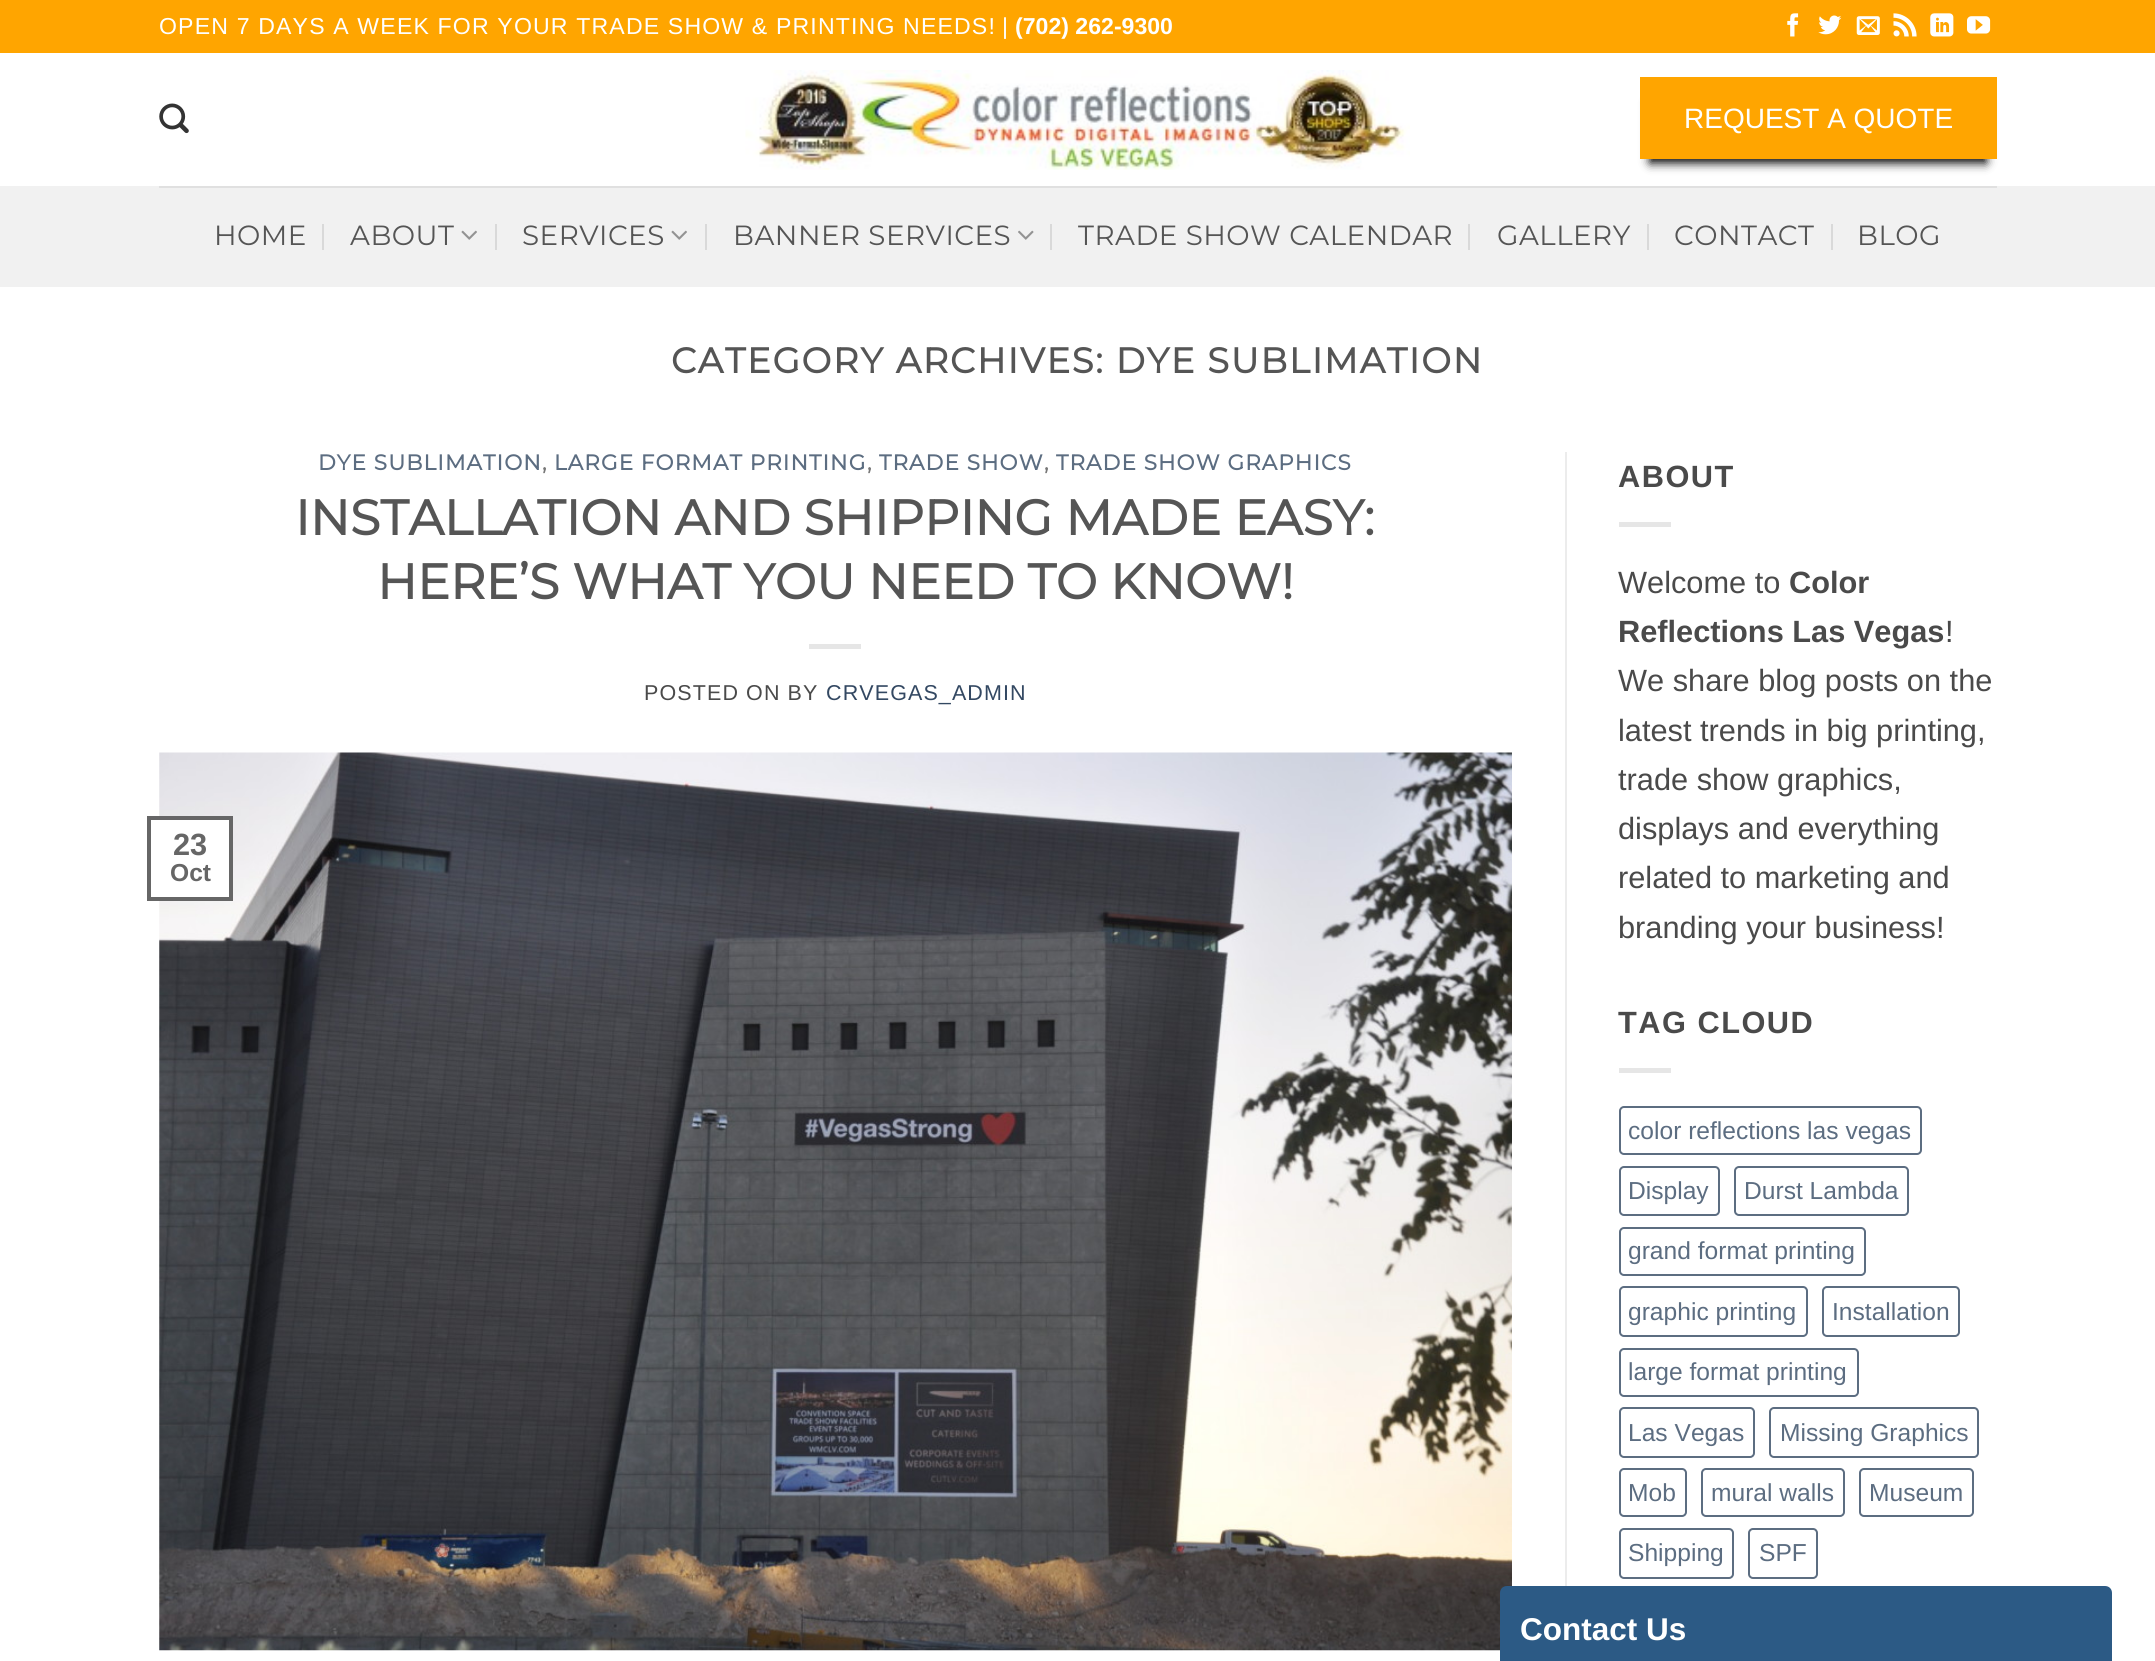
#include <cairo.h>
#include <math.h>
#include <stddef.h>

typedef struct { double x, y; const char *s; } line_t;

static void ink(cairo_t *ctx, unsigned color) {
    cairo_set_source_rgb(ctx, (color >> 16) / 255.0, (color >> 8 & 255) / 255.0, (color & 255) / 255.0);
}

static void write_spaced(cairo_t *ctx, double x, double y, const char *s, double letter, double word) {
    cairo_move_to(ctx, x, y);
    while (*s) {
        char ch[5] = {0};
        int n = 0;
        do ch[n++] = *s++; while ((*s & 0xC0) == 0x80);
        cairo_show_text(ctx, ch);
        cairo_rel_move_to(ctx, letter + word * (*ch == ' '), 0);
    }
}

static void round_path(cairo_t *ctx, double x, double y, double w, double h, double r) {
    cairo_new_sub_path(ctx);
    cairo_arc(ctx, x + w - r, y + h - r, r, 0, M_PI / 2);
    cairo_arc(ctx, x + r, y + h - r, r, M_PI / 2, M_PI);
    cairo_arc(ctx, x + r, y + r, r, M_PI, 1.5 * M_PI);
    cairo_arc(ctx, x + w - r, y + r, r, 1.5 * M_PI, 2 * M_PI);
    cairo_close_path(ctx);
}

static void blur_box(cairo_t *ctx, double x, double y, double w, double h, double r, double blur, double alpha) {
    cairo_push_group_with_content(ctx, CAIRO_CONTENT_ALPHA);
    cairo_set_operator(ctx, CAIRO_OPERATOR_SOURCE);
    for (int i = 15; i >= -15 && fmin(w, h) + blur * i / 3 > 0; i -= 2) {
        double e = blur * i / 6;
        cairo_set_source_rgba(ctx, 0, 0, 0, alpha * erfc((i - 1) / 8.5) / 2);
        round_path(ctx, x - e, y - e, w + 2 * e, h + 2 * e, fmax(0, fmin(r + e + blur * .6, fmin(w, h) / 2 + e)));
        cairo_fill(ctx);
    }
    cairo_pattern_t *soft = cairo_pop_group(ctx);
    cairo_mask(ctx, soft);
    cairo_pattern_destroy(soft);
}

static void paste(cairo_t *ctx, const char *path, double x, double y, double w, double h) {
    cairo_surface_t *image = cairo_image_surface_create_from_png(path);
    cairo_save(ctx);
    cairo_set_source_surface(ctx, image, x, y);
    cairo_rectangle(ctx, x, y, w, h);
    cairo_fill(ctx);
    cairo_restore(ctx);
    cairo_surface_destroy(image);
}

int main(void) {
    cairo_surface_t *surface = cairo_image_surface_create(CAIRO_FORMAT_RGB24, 2155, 1661);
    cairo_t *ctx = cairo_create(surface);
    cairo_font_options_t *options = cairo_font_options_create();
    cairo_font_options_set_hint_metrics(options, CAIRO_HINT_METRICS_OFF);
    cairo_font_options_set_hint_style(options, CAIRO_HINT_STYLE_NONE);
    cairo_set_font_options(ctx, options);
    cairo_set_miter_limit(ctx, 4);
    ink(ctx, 0xFFFFFF);
    cairo_paint(ctx);
    ink(ctx, 0xFFA500);
    cairo_rectangle(ctx, 0, 0, 2155, 53);
    cairo_fill(ctx);
    cairo_select_font_face(ctx, "Liberation Sans", CAIRO_FONT_SLANT_NORMAL, CAIRO_FONT_WEIGHT_NORMAL);
    cairo_set_font_size(ctx, 23.1);
    ink(ctx, 0xFFFFFF);
    write_spaced(ctx, 159, 34, "OPEN 7 DAYS A WEEK FOR YOUR TRADE SHOW & PRINTING NEEDS!", 1.15, 0);
    cairo_move_to(ctx, 1002, 34);
    cairo_show_text(ctx, "|");
    cairo_select_font_face(ctx, "Liberation Sans", CAIRO_FONT_SLANT_NORMAL, CAIRO_FONT_WEIGHT_BOLD);
    cairo_move_to(ctx, 1015, 34);
    cairo_show_text(ctx, "(702) 262-9300");
    paste(ctx, "media/1.png", 1787, 13, 12, 24);
    paste(ctx, "media/2.png", 1818, 15, 24, 20);
    paste(ctx, "media/3.png", 1856, 16, 24, 19);
    paste(ctx, "media/4.png", 1893, 13, 24, 24);
    paste(ctx, "media/5.png", 1930, 13, 24, 24);
    paste(ctx, "media/6.png", 1967, 16, 24, 18);
    paste(ctx, "media/7.png", 159, 103, 30, 31);
    paste(ctx, "media/8.png", 745, 70, 665, 100);
    ink(ctx, 0x000000);
    blur_box(ctx, 1650, 102, 336, 61, 0, 5, 1);
    ink(ctx, 0xFFA500);
    cairo_rectangle(ctx, 1640, 77, 357, 82);
    cairo_fill(ctx);
    cairo_select_font_face(ctx, "Liberation Sans", CAIRO_FONT_SLANT_NORMAL, CAIRO_FONT_WEIGHT_NORMAL);
    cairo_set_font_size(ctx, 28);
    ink(ctx, 0xFFFFFF);
    cairo_move_to(ctx, 1684, 128);
    cairo_show_text(ctx, "REQUEST A QUOTE");
    ink(ctx, 0xF1F1F1);
    cairo_rectangle(ctx, 0, 186, 2155, 101);
    cairo_fill(ctx);
    ink(ctx, 0xE0E0E0);
    cairo_rectangle(ctx, 159, 186, 1838, 2);
    cairo_fill(ctx);
    cairo_select_font_face(ctx, "Montserrat Thin", CAIRO_FONT_SLANT_NORMAL, CAIRO_FONT_WEIGHT_NORMAL);
    cairo_set_font_size(ctx, 27.75);
    ink(ctx, 0x555555);
    write_spaced(ctx, 214, 245, "HOME", 0.5, 0);
    ink(ctx, 0xD9D9D9);
    cairo_rectangle(ctx, 322, 224, 2, 26);
    cairo_fill(ctx);
    ink(ctx, 0x555555);
    write_spaced(ctx, 350, 245, "ABOUT", 0.5, 0);
    paste(ctx, "media/9.png", 461, 230, 16, 10);
    ink(ctx, 0xD9D9D9);
    cairo_rectangle(ctx, 495, 224, 2, 26);
    cairo_fill(ctx);
    ink(ctx, 0x555555);
    write_spaced(ctx, 522, 245, "SERVICES", 0.5, 0);
    paste(ctx, "media/9.png", 671, 230, 16, 10);
    ink(ctx, 0xD9D9D9);
    cairo_rectangle(ctx, 705, 224, 2, 26);
    cairo_fill(ctx);
    ink(ctx, 0x555555);
    write_spaced(ctx, 733, 245, "BANNER SERVICES", 0.5, 0);
    paste(ctx, "media/10.png", 1018, 230, 16, 10);
    ink(ctx, 0xD9D9D9);
    cairo_rectangle(ctx, 1050, 224, 2, 26);
    cairo_fill(ctx);
    ink(ctx, 0x555555);
    write_spaced(ctx, 1078, 245, "TRADE SHOW CALENDAR", 0.5, 0);
    ink(ctx, 0xD9D9D9);
    cairo_rectangle(ctx, 1468, 224, 2, 26);
    cairo_fill(ctx);
    ink(ctx, 0x555555);
    write_spaced(ctx, 1497, 245, "GALLERY", 0.5, 0);
    ink(ctx, 0xD9D9D9);
    cairo_rectangle(ctx, 1647, 224, 2, 26);
    cairo_fill(ctx);
    ink(ctx, 0x555555);
    write_spaced(ctx, 1674, 245, "CONTACT", 0.5, 0);
    ink(ctx, 0xD9D9D9);
    cairo_rectangle(ctx, 1831, 224, 2, 26);
    cairo_fill(ctx);
    ink(ctx, 0x555555);
    write_spaced(ctx, 1857, 245, "BLOG", 0.5, 0);
    cairo_select_font_face(ctx, "Montserrat", CAIRO_FONT_SLANT_NORMAL, CAIRO_FONT_WEIGHT_BOLD);
    cairo_set_font_size(ctx, 35.4);
    write_spaced(ctx, 671, 373, "CATEGORY ARCHIVES: DYE SUBLIMATION", 1.75, 0);
    cairo_set_font_size(ctx, 21.5);
    ink(ctx, 0x5C6D81);
    write_spaced(ctx, 318, 470, "DYE SUBLIMATION", 1.1, 0);
    ink(ctx, 0x777777);
    write_spaced(ctx, 542, 470, ",", 1.1, 0);
    ink(ctx, 0x5C6D81);
    write_spaced(ctx, 554, 470, "LARGE FORMAT PRINTING", 1.1, 0);
    ink(ctx, 0x777777);
    write_spaced(ctx, 867, 470, ",", 1.1, 0);
    ink(ctx, 0x5C6D81);
    write_spaced(ctx, 879, 470, "TRADE SHOW", 1.1, 0);
    ink(ctx, 0x777777);
    write_spaced(ctx, 1044, 470, ",", 1.1, 0);
    ink(ctx, 0x5C6D81);
    write_spaced(ctx, 1056, 470, "TRADE SHOW GRAPHICS", 1.1, 0);
    cairo_set_font_size(ctx, 49.25);
    ink(ctx, 0x555555);
    cairo_move_to(ctx, 295, 535);
    cairo_show_text(ctx, "INSTALLATION AND SHIPPING MADE EASY:");
    cairo_move_to(ctx, 377, 599);
    cairo_show_text(ctx, "HERE’S WHAT YOU NEED TO KNOW!");
    ink(ctx, 0xE6E6E6);
    cairo_rectangle(ctx, 809, 644, 52, 5);
    cairo_fill(ctx);
    cairo_select_font_face(ctx, "Liberation Sans", CAIRO_FONT_SLANT_NORMAL, CAIRO_FONT_WEIGHT_NORMAL);
    cairo_set_font_size(ctx, 21.5);
    ink(ctx, 0x4A4A4A);
    write_spaced(ctx, 644, 700, "POSTED ON BY", 1.1, 0);
    ink(ctx, 0x334862);
    write_spaced(ctx, 826, 700, "CRVEGAS_ADMIN", 1.1, 0);
    paste(ctx, "media/11.png", 159, 752, 1353, 899);
    ink(ctx, 0xFFFFFF);
    cairo_rectangle(ctx, 159, 820, 70, 77);
    cairo_fill(ctx);
    cairo_rectangle(ctx, 149, 818, 82, 81);
    ink(ctx, 0x666666);
    cairo_set_line_width(ctx, 4);
    cairo_stroke(ctx);
    cairo_select_font_face(ctx, "Liberation Sans", CAIRO_FONT_SLANT_NORMAL, CAIRO_FONT_WEIGHT_BOLD);
    cairo_set_font_size(ctx, 30.75);
    cairo_move_to(ctx, 173, 855);
    cairo_show_text(ctx, "23");
    cairo_set_font_size(ctx, 24.6);
    cairo_move_to(ctx, 170, 881);
    cairo_show_text(ctx, "Oct");
    ink(ctx, 0xECECEC);
    cairo_rectangle(ctx, 1565, 452, 2, 1134);
    cairo_fill(ctx);
    cairo_set_font_size(ctx, 30.75);
    ink(ctx, 0x4A4A4A);
    write_spaced(ctx, 1618, 487, "ABOUT", 1.5, 0);
    ink(ctx, 0xE6E6E6);
    cairo_rectangle(ctx, 1619, 522, 52, 5);
    cairo_fill(ctx);
    cairo_select_font_face(ctx, "Liberation Sans", CAIRO_FONT_SLANT_NORMAL, CAIRO_FONT_WEIGHT_NORMAL);
    ink(ctx, 0x4A4A4A);
    cairo_move_to(ctx, 1618, 593);
    cairo_show_text(ctx, "Welcome to");
    cairo_select_font_face(ctx, "Liberation Sans", CAIRO_FONT_SLANT_NORMAL, CAIRO_FONT_WEIGHT_BOLD);
    cairo_move_to(ctx, 1789, 593);
    cairo_show_text(ctx, "Color");
    cairo_move_to(ctx, 1618, 642);
    cairo_show_text(ctx, "Reflections Las Vegas");
    cairo_select_font_face(ctx, "Liberation Sans", CAIRO_FONT_SLANT_NORMAL, CAIRO_FONT_WEIGHT_NORMAL);
    {
        static const line_t items[] = {
            {1945, 642, "!"},
            {1618, 691, "We share blog posts on the"},
            {1618, 741, "latest trends in big printing,"},
            {1618, 790, "trade show graphics,"},
            {1618, 839, "displays and everything"},
            {1618, 888, "related to marketing and"},
            {1618, 938, "branding your business!"},
        };
        for (size_t i = 0; i < sizeof items / sizeof *items; i++) {
            cairo_move_to(ctx, items[i].x, items[i].y);
            cairo_show_text(ctx, items[i].s);
        }
    }
    cairo_select_font_face(ctx, "Liberation Sans", CAIRO_FONT_SLANT_NORMAL, CAIRO_FONT_WEIGHT_BOLD);
    write_spaced(ctx, 1618, 1033, "TAG CLOUD", 1.5, 0);
    ink(ctx, 0xE6E6E6);
    cairo_rectangle(ctx, 1619, 1068, 52, 5);
    cairo_fill(ctx);
    round_path(ctx, 1620, 1107, 301, 47, 4);
    ink(ctx, 0x5C6D81);
    cairo_set_line_width(ctx, 2);
    cairo_stroke(ctx);
    cairo_select_font_face(ctx, "Liberation Sans", CAIRO_FONT_SLANT_NORMAL, CAIRO_FONT_WEIGHT_NORMAL);
    cairo_set_font_size(ctx, 24.6);
    cairo_move_to(ctx, 1628, 1139);
    cairo_show_text(ctx, "color reflections las vegas");
    round_path(ctx, 1620, 1167, 99, 48, 4);
    cairo_stroke(ctx);
    cairo_move_to(ctx, 1628, 1199);
    cairo_show_text(ctx, "Display");
    round_path(ctx, 1735, 1167, 173, 48, 4);
    cairo_stroke(ctx);
    cairo_move_to(ctx, 1744, 1199);
    cairo_show_text(ctx, "Durst Lambda");
    round_path(ctx, 1620, 1228, 245, 47, 4);
    cairo_stroke(ctx);
    cairo_move_to(ctx, 1628, 1259);
    cairo_show_text(ctx, "grand format printing");
    round_path(ctx, 1620, 1287, 187, 49, 4);
    cairo_stroke(ctx);
    cairo_move_to(ctx, 1628, 1320);
    cairo_show_text(ctx, "graphic printing");
    round_path(ctx, 1823, 1287, 136, 49, 4);
    cairo_stroke(ctx);
    cairo_move_to(ctx, 1832, 1320);
    cairo_show_text(ctx, "Installation");
    round_path(ctx, 1620, 1349, 238, 47, 4);
    cairo_stroke(ctx);
    cairo_move_to(ctx, 1628, 1380);
    cairo_show_text(ctx, "large format printing");
    round_path(ctx, 1620, 1408, 134, 49, 4);
    cairo_stroke(ctx);
    cairo_move_to(ctx, 1628, 1441);
    cairo_show_text(ctx, "Las Vegas");
    round_path(ctx, 1770, 1408, 208, 49, 4);
    cairo_stroke(ctx);
    cairo_move_to(ctx, 1780, 1441);
    cairo_show_text(ctx, "Missing Graphics");
    round_path(ctx, 1620, 1469, 66, 47, 4);
    cairo_stroke(ctx);
    cairo_move_to(ctx, 1628, 1501);
    cairo_show_text(ctx, "Mob");
    round_path(ctx, 1702, 1469, 142, 47, 4);
    cairo_stroke(ctx);
    cairo_move_to(ctx, 1711, 1501);
    cairo_show_text(ctx, "mural walls");
    round_path(ctx, 1860, 1469, 113, 47, 4);
    cairo_stroke(ctx);
    cairo_move_to(ctx, 1869, 1501);
    cairo_show_text(ctx, "Museum");
    round_path(ctx, 1620, 1529, 113, 49, 4);
    cairo_stroke(ctx);
    cairo_move_to(ctx, 1628, 1561);
    cairo_show_text(ctx, "Shipping");
    round_path(ctx, 1749, 1529, 68, 49, 4);
    cairo_stroke(ctx);
    cairo_move_to(ctx, 1759, 1561);
    cairo_show_text(ctx, "SPF");
    ink(ctx, 0x2C5A85);
    cairo_new_path(ctx);
    cairo_move_to(ctx, 1507, 1587);
    cairo_line_to(ctx, 2105, 1587);
    cairo_curve_to(ctx, 2108.5, 1587, 2111, 1589.5, 2111, 1593);
    cairo_line_to(ctx, 2111, 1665);
    cairo_line_to(ctx, 1501, 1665);
    cairo_line_to(ctx, 1501, 1593);
    cairo_curve_to(ctx, 1501, 1589.5, 1503.5, 1587, 1507, 1587);
    cairo_close_path(ctx);
    cairo_fill_preserve(ctx);
    cairo_stroke(ctx);
    cairo_select_font_face(ctx, "Liberation Sans", CAIRO_FONT_SLANT_NORMAL, CAIRO_FONT_WEIGHT_BOLD);
    cairo_set_font_size(ctx, 31.5);
    ink(ctx, 0xFFFFFF);
    cairo_move_to(ctx, 1520, 1640);
    cairo_show_text(ctx, "Contact Us");
    cairo_surface_write_to_png(surface, "image.png");
    cairo_font_options_destroy(options);
    cairo_destroy(ctx);
    cairo_surface_destroy(surface);
    return 0;
}
